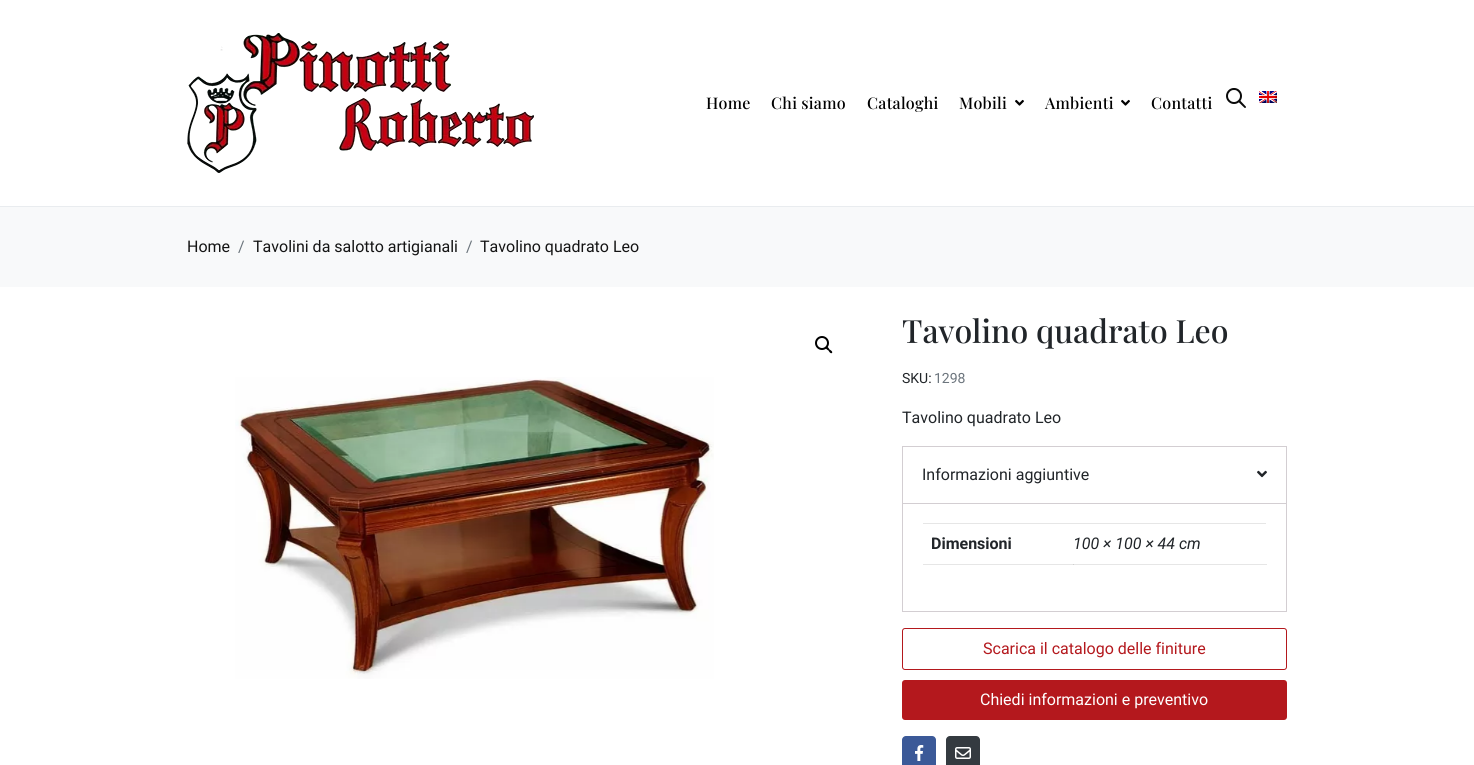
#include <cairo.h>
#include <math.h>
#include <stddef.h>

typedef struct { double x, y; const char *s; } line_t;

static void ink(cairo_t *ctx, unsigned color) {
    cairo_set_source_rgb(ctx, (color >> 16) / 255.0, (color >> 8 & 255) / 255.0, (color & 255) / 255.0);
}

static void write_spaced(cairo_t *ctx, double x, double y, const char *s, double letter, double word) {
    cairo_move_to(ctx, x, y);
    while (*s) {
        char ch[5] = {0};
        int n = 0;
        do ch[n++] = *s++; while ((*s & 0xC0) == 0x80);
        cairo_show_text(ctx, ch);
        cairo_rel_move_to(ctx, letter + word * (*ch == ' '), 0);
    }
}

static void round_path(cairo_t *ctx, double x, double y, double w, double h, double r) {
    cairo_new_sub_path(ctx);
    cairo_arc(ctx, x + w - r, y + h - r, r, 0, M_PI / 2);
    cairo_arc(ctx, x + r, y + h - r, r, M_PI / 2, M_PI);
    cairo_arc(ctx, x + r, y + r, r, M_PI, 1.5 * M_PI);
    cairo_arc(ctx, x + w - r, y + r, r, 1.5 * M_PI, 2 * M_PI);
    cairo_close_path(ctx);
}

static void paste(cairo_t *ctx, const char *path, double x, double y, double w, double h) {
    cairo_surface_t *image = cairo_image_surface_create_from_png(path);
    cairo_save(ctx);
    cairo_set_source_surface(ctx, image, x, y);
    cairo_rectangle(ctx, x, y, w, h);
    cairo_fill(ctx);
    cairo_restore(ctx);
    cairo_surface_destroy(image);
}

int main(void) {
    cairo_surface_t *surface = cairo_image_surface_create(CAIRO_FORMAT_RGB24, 1474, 765);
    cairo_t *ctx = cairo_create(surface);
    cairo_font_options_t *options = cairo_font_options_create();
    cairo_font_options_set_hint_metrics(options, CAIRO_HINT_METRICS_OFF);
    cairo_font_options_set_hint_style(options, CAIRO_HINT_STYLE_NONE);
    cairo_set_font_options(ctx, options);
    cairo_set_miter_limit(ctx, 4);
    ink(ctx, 0xFFFFFF);
    cairo_paint(ctx);
    ink(ctx, 0xE9ECEF);
    cairo_rectangle(ctx, 0, 206, 1474, 1);
    cairo_fill(ctx);
    paste(ctx, "media/1.png", 187, 33, 347, 140);
    cairo_select_font_face(ctx, "Playfair Display Medium", CAIRO_FONT_SLANT_NORMAL, CAIRO_FONT_WEIGHT_NORMAL);
    cairo_set_font_size(ctx, 16);
    ink(ctx, 0x000000);
    {
        static const line_t items[] = {
            {706, 109, "Home"},
            {771, 109, "Chi siamo"},
            {867, 109, "Cataloghi"},
            {959, 109, "Mobili"},
        };
        for (size_t i = 0; i < sizeof items / sizeof *items; i++) {
            write_spaced(ctx, items[i].x, items[i].y, items[i].s, 0.25, 0);
        }
    }
    paste(ctx, "media/2.png", 1015, 99, 9, 7);
    write_spaced(ctx, 1045, 109, "Ambienti", 0.25, 0);
    paste(ctx, "media/2.png", 1121, 99, 9, 7);
    write_spaced(ctx, 1151, 109, "Contatti", 0.25, 0);
    paste(ctx, "media/3.png", 1226, 88, 20, 20);
    paste(ctx, "media/4.png", 1259, 91, 18, 12);
    ink(ctx, 0xE6E6E6);
    cairo_rectangle(ctx, 923, 564, 151, 1);
    cairo_fill(ctx);
    ink(ctx, 0xF8F9FA);
    cairo_rectangle(ctx, 0, 207, 1474, 80);
    cairo_fill(ctx);
    cairo_select_font_face(ctx, "Roboto", CAIRO_FONT_SLANT_NORMAL, CAIRO_FONT_WEIGHT_NORMAL);
    ink(ctx, 0x141414);
    cairo_move_to(ctx, 187, 252);
    cairo_show_text(ctx, "Home");
    ink(ctx, 0x6C757D);
    cairo_move_to(ctx, 238, 252);
    cairo_show_text(ctx, "/");
    ink(ctx, 0x141414);
    cairo_move_to(ctx, 253, 252);
    cairo_show_text(ctx, "Tavolini da salotto artigianali");
    ink(ctx, 0x6C757D);
    cairo_move_to(ctx, 466, 252);
    cairo_show_text(ctx, "/");
    ink(ctx, 0x141414);
    cairo_move_to(ctx, 480, 252);
    cairo_show_text(ctx, "Tavolino quadrato Leo");
    cairo_new_path(ctx);
    cairo_arc(ctx, 822, 343, 6, 0, 2 * M_PI);
    ink(ctx, 0x000000);
    cairo_stroke(ctx);
    cairo_new_path(ctx);
    cairo_move_to(ctx, 826, 347);
    cairo_curve_to(ctx, 827.5, 346, 829, 348.5, 829.5, 349.5);
    cairo_curve_to(ctx, 830.5, 350, 833, 351.5, 832, 353);
    cairo_curve_to(ctx, 830.5, 354, 829, 351.5, 828.5, 350.5);
    cairo_curve_to(ctx, 827.5, 350, 825, 348.5, 826, 347);
    cairo_close_path(ctx);
    cairo_fill(ctx);
    paste(ctx, "media/5.png", 235, 377, 479, 302);
    cairo_select_font_face(ctx, "Playfair Display Medium", CAIRO_FONT_SLANT_NORMAL, CAIRO_FONT_WEIGHT_NORMAL);
    cairo_set_font_size(ctx, 32);
    ink(ctx, 0x212529);
    cairo_move_to(ctx, 902, 343);
    cairo_show_text(ctx, "Tavolino quadrato Leo");
    cairo_select_font_face(ctx, "Roboto", CAIRO_FONT_SLANT_NORMAL, CAIRO_FONT_WEIGHT_NORMAL);
    cairo_set_font_size(ctx, 14);
    cairo_move_to(ctx, 902, 383);
    cairo_show_text(ctx, "SKU:");
    ink(ctx, 0x6C757D);
    cairo_move_to(ctx, 934, 383);
    cairo_show_text(ctx, "1298");
    cairo_set_font_size(ctx, 16);
    ink(ctx, 0x212529);
    cairo_move_to(ctx, 902, 423);
    cairo_show_text(ctx, "Tavolino quadrato Leo");
    cairo_rectangle(ctx, 902.5, 446.5, 384, 165);
    ink(ctx, 0xD3CED2);
    cairo_set_line_width(ctx, 1);
    cairo_stroke(ctx);
    cairo_rectangle(ctx, 903, 503, 383, 1);
    cairo_fill(ctx);
    ink(ctx, 0x212529);
    cairo_move_to(ctx, 922, 480);
    cairo_show_text(ctx, "Informazioni aggiuntive");
    paste(ctx, "media/6.png", 1257, 470, 10, 8);
    ink(ctx, 0xE6E6E6);
    cairo_rectangle(ctx, 923, 523, 343, 1);
    cairo_fill(ctx);
    cairo_select_font_face(ctx, "Roboto", CAIRO_FONT_SLANT_NORMAL, CAIRO_FONT_WEIGHT_BOLD);
    ink(ctx, 0x212529);
    cairo_move_to(ctx, 931, 549);
    cairo_show_text(ctx, "Dimensioni");
    ink(ctx, 0xE6E6E6);
    cairo_rectangle(ctx, 1073, 564, 194, 1);
    cairo_fill(ctx);
    ink(ctx, 0xCFCFCF);
    cairo_rectangle(ctx, 1073, 564, 1, 1);
    cairo_fill(ctx);
    cairo_select_font_face(ctx, "Roboto", CAIRO_FONT_SLANT_ITALIC, CAIRO_FONT_WEIGHT_NORMAL);
    ink(ctx, 0x212529);
    cairo_move_to(ctx, 1073, 549);
    cairo_show_text(ctx, "100 × 100 × 44 cm");
    round_path(ctx, 902.5, 628.5, 384, 41, 2.5);
    ink(ctx, 0xB4181D);
    cairo_stroke(ctx);
    cairo_select_font_face(ctx, "Roboto", CAIRO_FONT_SLANT_NORMAL, CAIRO_FONT_WEIGHT_NORMAL);
    cairo_move_to(ctx, 983, 654);
    cairo_show_text(ctx, "Scarica il catalogo delle finiture");
    round_path(ctx, 902, 680, 385, 40, 3);
    cairo_fill(ctx);
    ink(ctx, 0xFFFFFF);
    cairo_move_to(ctx, 980, 705);
    cairo_show_text(ctx, "Chiedi informazioni e preventivo");
    ink(ctx, 0x3B5998);
    round_path(ctx, 902, 736, 34, 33, 4);
    cairo_fill(ctx);
    paste(ctx, "media/7.png", 915, 745, 9, 16);
    ink(ctx, 0x343A40);
    round_path(ctx, 946, 736, 34, 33, 4);
    cairo_fill(ctx);
    paste(ctx, "media/8.png", 955, 747, 16, 12);
    cairo_surface_write_to_png(surface, "image.png");
    cairo_font_options_destroy(options);
    cairo_destroy(ctx);
    cairo_surface_destroy(surface);
    return 0;
}
